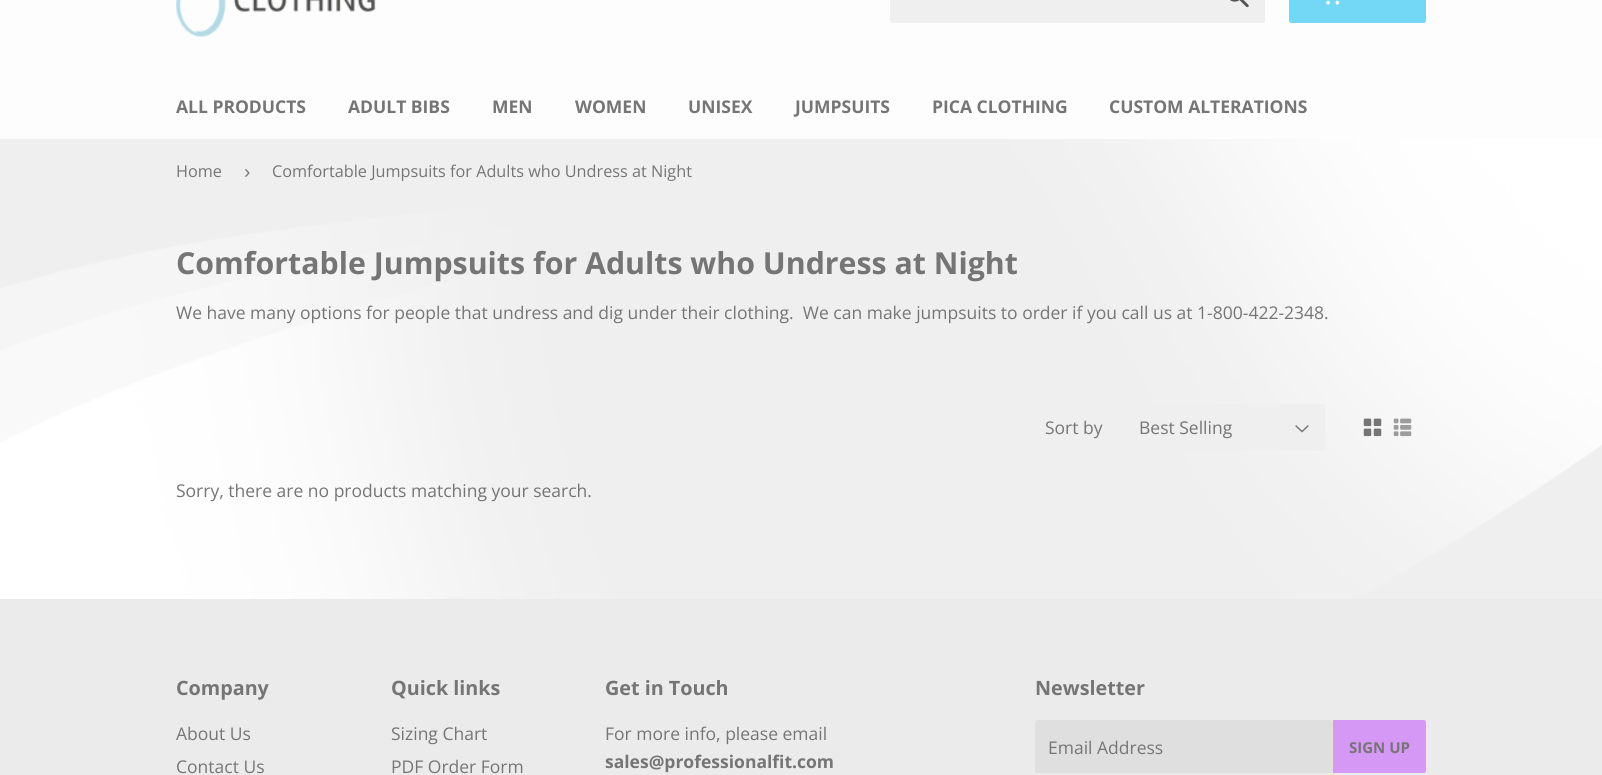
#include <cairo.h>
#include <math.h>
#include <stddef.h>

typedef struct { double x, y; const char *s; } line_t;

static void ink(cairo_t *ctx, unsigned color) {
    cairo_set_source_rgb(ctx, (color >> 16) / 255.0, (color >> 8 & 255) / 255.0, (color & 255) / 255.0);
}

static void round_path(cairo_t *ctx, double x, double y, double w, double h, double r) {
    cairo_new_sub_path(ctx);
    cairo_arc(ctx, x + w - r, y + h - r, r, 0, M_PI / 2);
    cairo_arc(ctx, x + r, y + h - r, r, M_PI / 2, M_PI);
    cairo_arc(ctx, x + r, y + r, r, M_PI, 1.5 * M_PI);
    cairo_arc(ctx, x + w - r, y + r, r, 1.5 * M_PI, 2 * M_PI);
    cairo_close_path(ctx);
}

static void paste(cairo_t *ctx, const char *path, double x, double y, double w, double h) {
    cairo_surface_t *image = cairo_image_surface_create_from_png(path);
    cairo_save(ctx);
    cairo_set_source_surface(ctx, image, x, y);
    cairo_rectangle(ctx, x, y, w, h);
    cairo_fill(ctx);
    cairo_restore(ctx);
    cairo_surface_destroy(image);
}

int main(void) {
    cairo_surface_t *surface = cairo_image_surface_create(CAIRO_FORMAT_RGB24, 1602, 775);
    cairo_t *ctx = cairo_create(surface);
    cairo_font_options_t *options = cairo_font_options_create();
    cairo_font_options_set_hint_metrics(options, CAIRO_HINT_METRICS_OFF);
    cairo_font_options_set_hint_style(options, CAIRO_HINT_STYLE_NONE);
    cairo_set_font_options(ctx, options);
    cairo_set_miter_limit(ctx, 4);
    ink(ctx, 0xEFEFEF);
    cairo_paint(ctx);
    paste(ctx, "media/1.png", 0, 139, 1602, 460);
    ink(ctx, 0xFDFDFD);
    cairo_rectangle(ctx, 0, 0, 1602, 139);
    cairo_fill(ctx);
    paste(ctx, "media/2.png", 176, 0, 200, 37);
    ink(ctx, 0xEFEFEF);
    round_path(ctx, 890, -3, 375, 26, 2.5);
    cairo_fill(ctx);
    paste(ctx, "media/3.png", 1230, 0, 19, 8);
    ink(ctx, 0x72D8F5);
    round_path(ctx, 1289, -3, 137, 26, 2.5);
    cairo_fill(ctx);
    paste(ctx, "media/4.png", 1326, 0, 14, 5);
    cairo_select_font_face(ctx, "Open Sans", CAIRO_FONT_SLANT_NORMAL, CAIRO_FONT_WEIGHT_BOLD);
    cairo_set_font_size(ctx, 17.5);
    ink(ctx, 0x757575);
    {
        static const line_t items[] = {
            {176, 113, "ALL PRODUCTS"},
            {348, 113, "ADULT BIBS"},
            {492, 113, "MEN"},
            {575, 113, "WOMEN"},
            {688, 113, "UNISEX"},
            {795, 113, "JUMPSUITS"},
            {932, 113, "PICA CLOTHING"},
            {1109, 113, "CUSTOM ALTERATIONS"},
        };
        for (size_t i = 0; i < sizeof items / sizeof *items; i++) {
            cairo_move_to(ctx, items[i].x, items[i].y);
            cairo_show_text(ctx, items[i].s);
        }
    }
    cairo_select_font_face(ctx, "Open Sans", CAIRO_FONT_SLANT_NORMAL, CAIRO_FONT_WEIGHT_NORMAL);
    cairo_set_font_size(ctx, 16.25);
    cairo_move_to(ctx, 176, 177);
    cairo_show_text(ctx, "Home");
    cairo_select_font_face(ctx, "Liberation Sans", CAIRO_FONT_SLANT_NORMAL, CAIRO_FONT_WEIGHT_NORMAL);
    cairo_set_font_size(ctx, 19);
    cairo_move_to(ctx, 244, 178);
    cairo_show_text(ctx, "›");
    cairo_select_font_face(ctx, "Open Sans", CAIRO_FONT_SLANT_NORMAL, CAIRO_FONT_WEIGHT_NORMAL);
    cairo_set_font_size(ctx, 16.25);
    cairo_move_to(ctx, 272, 177);
    cairo_show_text(ctx, "Comfortable Jumpsuits for Adults who Undress at Night");
    cairo_select_font_face(ctx, "Open Sans", CAIRO_FONT_SLANT_NORMAL, CAIRO_FONT_WEIGHT_BOLD);
    cairo_set_font_size(ctx, 30.3);
    cairo_move_to(ctx, 176, 274);
    cairo_show_text(ctx, "Comfortable Jumpsuits for Adults who Undress at Night");
    cairo_select_font_face(ctx, "Open Sans", CAIRO_FONT_SLANT_NORMAL, CAIRO_FONT_WEIGHT_NORMAL);
    cairo_set_font_size(ctx, 17.5);
    cairo_move_to(ctx, 176, 319);
    cairo_show_text(ctx, "We have many options for people that undress and dig under their clothing.  We can make jumpsuits to order if you call us at 1-800-422-2348.");
    cairo_move_to(ctx, 1045, 434);
    cairo_show_text(ctx, "Sort by");
    ink(ctx, 0xEFEFEF);
    round_path(ctx, 1125, 404, 200, 47, 2.5);
    cairo_fill(ctx);
    paste(ctx, "media/5.png", 1295, 425, 14, 8);
    ink(ctx, 0x757575);
    cairo_move_to(ctx, 1139, 434);
    cairo_show_text(ctx, "Best Selling");
    paste(ctx, "media/6.png", 1363, 418, 19, 19);
    paste(ctx, "media/7.png", 1393, 418, 19, 19);
    cairo_move_to(ctx, 176, 497);
    cairo_show_text(ctx, "Sorry, there are no products matching your search.");
    ink(ctx, 0xEBEBEB);
    cairo_rectangle(ctx, 0, 599, 1602, 176);
    cairo_fill(ctx);
    cairo_select_font_face(ctx, "Open Sans", CAIRO_FONT_SLANT_NORMAL, CAIRO_FONT_WEIGHT_BOLD);
    cairo_set_font_size(ctx, 19.75);
    ink(ctx, 0x757575);
    cairo_move_to(ctx, 176, 695);
    cairo_show_text(ctx, "Company");
    cairo_select_font_face(ctx, "Open Sans", CAIRO_FONT_SLANT_NORMAL, CAIRO_FONT_WEIGHT_NORMAL);
    cairo_set_font_size(ctx, 17.5);
    cairo_move_to(ctx, 176, 740);
    cairo_show_text(ctx, "About Us");
    cairo_move_to(ctx, 176, 773);
    cairo_show_text(ctx, "Contact Us");
    cairo_select_font_face(ctx, "Open Sans", CAIRO_FONT_SLANT_NORMAL, CAIRO_FONT_WEIGHT_BOLD);
    cairo_set_font_size(ctx, 19.75);
    cairo_move_to(ctx, 391, 695);
    cairo_show_text(ctx, "Quick links");
    cairo_select_font_face(ctx, "Open Sans", CAIRO_FONT_SLANT_NORMAL, CAIRO_FONT_WEIGHT_NORMAL);
    cairo_set_font_size(ctx, 17.5);
    cairo_move_to(ctx, 391, 740);
    cairo_show_text(ctx, "Sizing Chart");
    cairo_move_to(ctx, 391, 773);
    cairo_show_text(ctx, "PDF Order Form");
    cairo_select_font_face(ctx, "Open Sans", CAIRO_FONT_SLANT_NORMAL, CAIRO_FONT_WEIGHT_BOLD);
    cairo_set_font_size(ctx, 19.75);
    cairo_move_to(ctx, 605, 695);
    cairo_show_text(ctx, "Get in Touch");
    cairo_select_font_face(ctx, "Open Sans", CAIRO_FONT_SLANT_NORMAL, CAIRO_FONT_WEIGHT_NORMAL);
    cairo_set_font_size(ctx, 17.5);
    cairo_move_to(ctx, 605, 740);
    cairo_show_text(ctx, "For more info, please email");
    cairo_select_font_face(ctx, "Open Sans", CAIRO_FONT_SLANT_NORMAL, CAIRO_FONT_WEIGHT_BOLD);
    cairo_move_to(ctx, 605, 768);
    cairo_show_text(ctx, "sales@professionalfit.com");
    cairo_set_font_size(ctx, 19.75);
    cairo_move_to(ctx, 1035, 695);
    cairo_show_text(ctx, "Newsletter");
    ink(ctx, 0xDFDFDF);
    round_path(ctx, 1035, 720, 298, 53, 2.5);
    cairo_fill(ctx);
    cairo_select_font_face(ctx, "Open Sans", CAIRO_FONT_SLANT_NORMAL, CAIRO_FONT_WEIGHT_NORMAL);
    cairo_set_font_size(ctx, 17.5);
    ink(ctx, 0x757575);
    cairo_move_to(ctx, 1048, 754);
    cairo_show_text(ctx, "Email Address");
    ink(ctx, 0xD698F5);
    cairo_new_path(ctx);
    cairo_move_to(ctx, 1333, 720);
    cairo_line_to(ctx, 1423.5, 720);
    cairo_curve_to(ctx, 1425, 720, 1426, 721, 1426, 722.5);
    cairo_line_to(ctx, 1426, 770.5);
    cairo_curve_to(ctx, 1426, 772, 1425, 773, 1423.5, 773);
    cairo_line_to(ctx, 1333, 773);
    cairo_close_path(ctx);
    cairo_fill(ctx);
    cairo_select_font_face(ctx, "Open Sans", CAIRO_FONT_SLANT_NORMAL, CAIRO_FONT_WEIGHT_BOLD);
    cairo_set_font_size(ctx, 15);
    ink(ctx, 0x757575);
    cairo_move_to(ctx, 1349, 753);
    cairo_show_text(ctx, "SIGN UP");
    cairo_surface_write_to_png(surface, "image.png");
    cairo_font_options_destroy(options);
    cairo_destroy(ctx);
    cairo_surface_destroy(surface);
    return 0;
}
